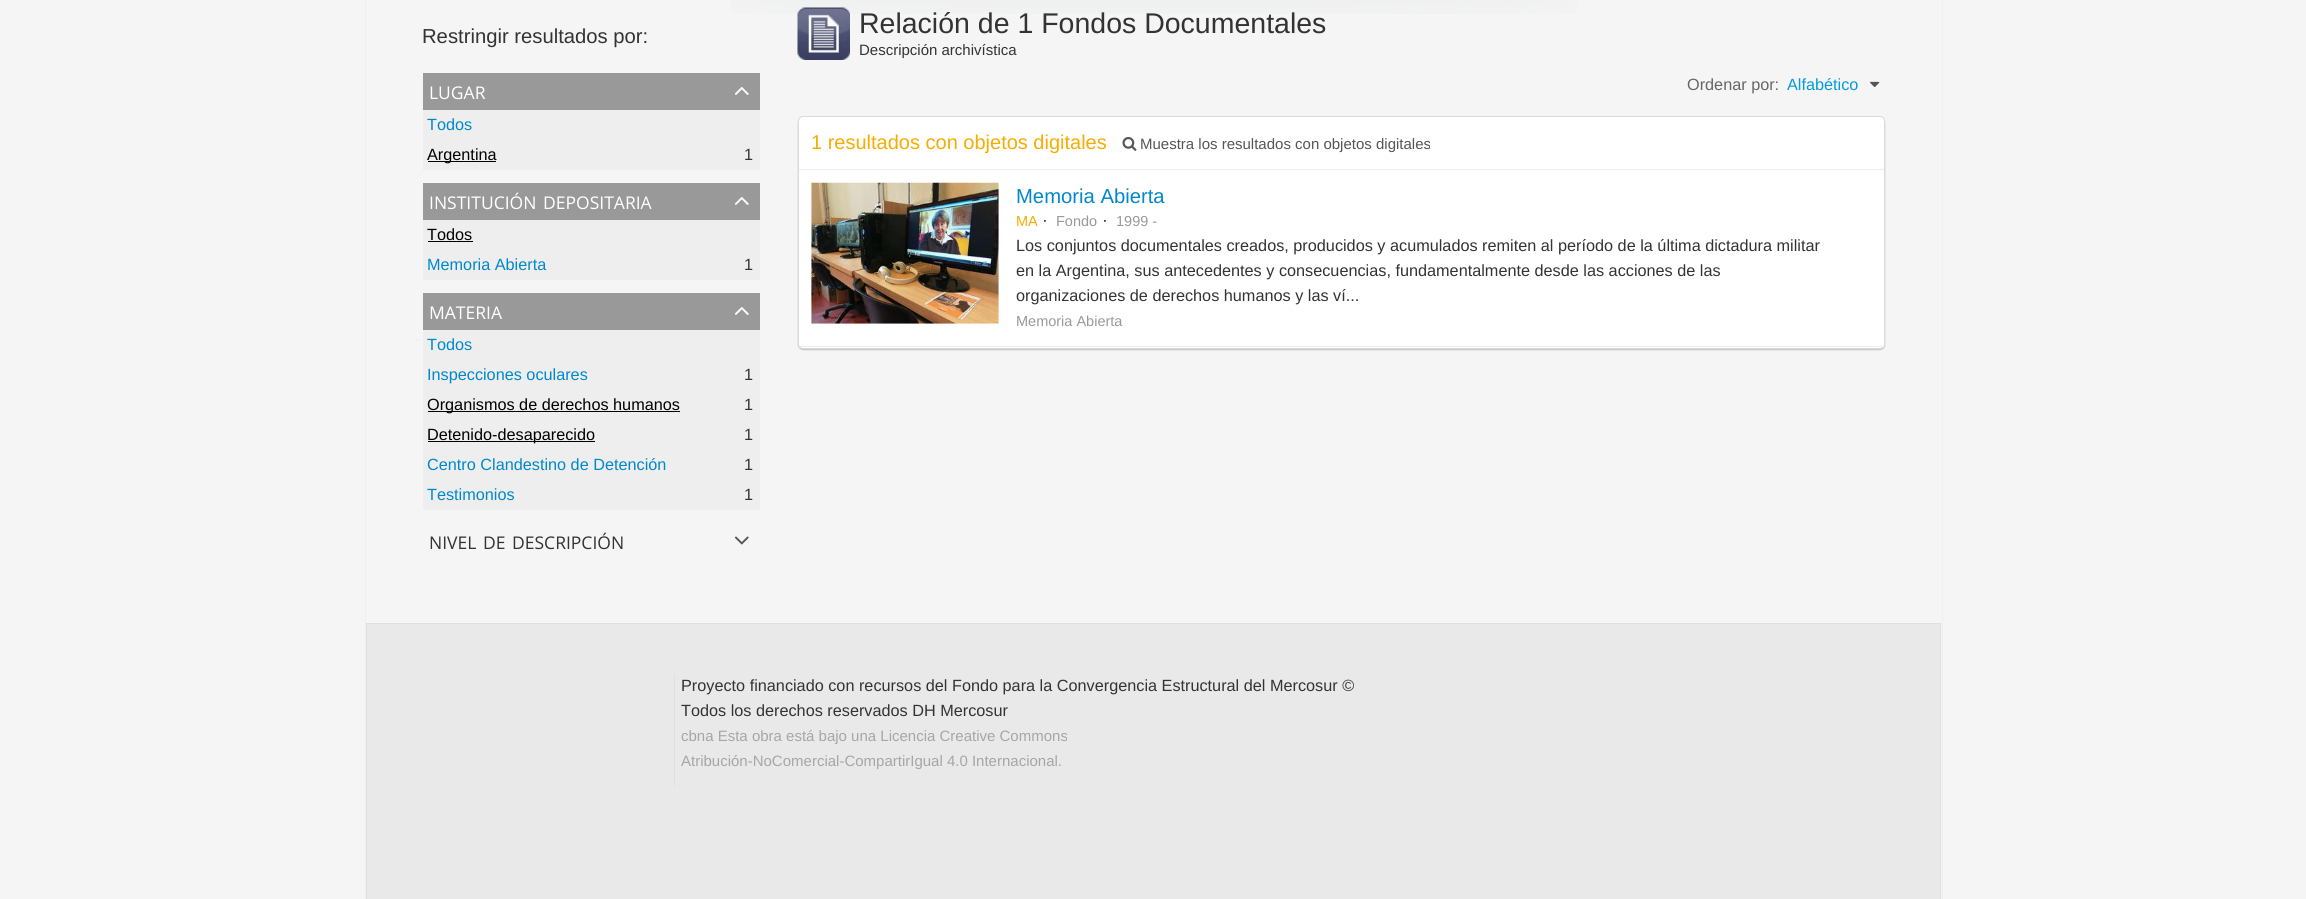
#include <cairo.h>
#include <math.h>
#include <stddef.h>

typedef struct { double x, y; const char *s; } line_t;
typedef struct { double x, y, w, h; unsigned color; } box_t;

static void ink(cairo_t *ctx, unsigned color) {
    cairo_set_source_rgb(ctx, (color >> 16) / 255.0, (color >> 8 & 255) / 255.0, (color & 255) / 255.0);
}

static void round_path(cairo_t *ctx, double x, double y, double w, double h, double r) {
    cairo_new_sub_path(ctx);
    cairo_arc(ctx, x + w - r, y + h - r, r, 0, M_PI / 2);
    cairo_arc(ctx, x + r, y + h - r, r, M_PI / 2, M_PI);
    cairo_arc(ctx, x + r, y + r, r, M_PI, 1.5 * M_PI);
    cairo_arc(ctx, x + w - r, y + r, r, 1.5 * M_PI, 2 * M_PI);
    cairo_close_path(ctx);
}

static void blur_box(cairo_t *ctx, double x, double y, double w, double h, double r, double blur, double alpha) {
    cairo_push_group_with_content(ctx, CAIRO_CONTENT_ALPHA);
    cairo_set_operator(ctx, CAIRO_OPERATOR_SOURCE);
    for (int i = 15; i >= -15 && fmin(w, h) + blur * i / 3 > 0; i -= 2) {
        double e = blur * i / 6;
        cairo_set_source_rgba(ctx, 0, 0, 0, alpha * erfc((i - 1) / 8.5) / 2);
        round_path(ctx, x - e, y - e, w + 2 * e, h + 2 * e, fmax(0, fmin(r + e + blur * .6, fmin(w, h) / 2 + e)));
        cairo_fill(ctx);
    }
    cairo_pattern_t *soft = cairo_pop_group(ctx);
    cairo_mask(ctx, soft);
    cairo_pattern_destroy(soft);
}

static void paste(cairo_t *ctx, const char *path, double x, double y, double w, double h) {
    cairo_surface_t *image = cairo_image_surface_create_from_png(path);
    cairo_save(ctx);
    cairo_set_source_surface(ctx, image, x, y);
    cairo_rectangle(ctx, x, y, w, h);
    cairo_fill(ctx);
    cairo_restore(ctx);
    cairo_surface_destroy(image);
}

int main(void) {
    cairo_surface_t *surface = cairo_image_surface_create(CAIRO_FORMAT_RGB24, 2306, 899);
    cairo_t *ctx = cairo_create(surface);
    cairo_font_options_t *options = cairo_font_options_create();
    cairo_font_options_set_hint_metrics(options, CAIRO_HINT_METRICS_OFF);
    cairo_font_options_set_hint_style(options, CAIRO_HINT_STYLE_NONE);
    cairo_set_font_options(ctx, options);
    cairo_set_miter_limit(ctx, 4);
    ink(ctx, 0xF5F5F5);
    cairo_paint(ctx);
    cairo_rectangle(ctx, 365.5, -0.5, 1577, 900);
    ink(ctx, 0xEFEFEF);
    cairo_set_line_width(ctx, 1);
    cairo_stroke(ctx);
    paste(ctx, "media/1.png", 731, 0, 846, 14);
    cairo_select_font_face(ctx, "Liberation Sans", CAIRO_FONT_SLANT_NORMAL, CAIRO_FONT_WEIGHT_NORMAL);
    cairo_set_font_size(ctx, 20.25);
    ink(ctx, 0x333333);
    cairo_move_to(ctx, 422, 43);
    cairo_show_text(ctx, "Restringir resultados por:");
    ink(ctx, 0x999999);
    cairo_rectangle(ctx, 423, 73, 337, 37);
    cairo_fill(ctx);
    cairo_select_font_face(ctx, "Open Sans", CAIRO_FONT_SLANT_NORMAL, CAIRO_FONT_WEIGHT_NORMAL);
    cairo_set_font_size(ctx, 17.5);
    ink(ctx, 0xFFFFFF);
    cairo_move_to(ctx, 429, 99);
    cairo_show_text(ctx, "LUGAR");
    paste(ctx, "media/2.png", 734, 87, 15, 8);
    ink(ctx, 0xEEEEEE);
    cairo_rectangle(ctx, 423, 110, 337, 60);
    cairo_fill(ctx);
    cairo_select_font_face(ctx, "Liberation Sans", CAIRO_FONT_SLANT_NORMAL, CAIRO_FONT_WEIGHT_NORMAL);
    cairo_set_font_size(ctx, 16.25);
    ink(ctx, 0x0088CC);
    cairo_move_to(ctx, 427, 130);
    cairo_show_text(ctx, "Todos");
    ink(ctx, 0x000000);
    cairo_rectangle(ctx, 428, 161, 68, 1);
    cairo_fill(ctx);
    cairo_move_to(ctx, 427, 160);
    cairo_show_text(ctx, "Argentina");
    ink(ctx, 0x333333);
    cairo_move_to(ctx, 744, 160);
    cairo_show_text(ctx, "1");
    ink(ctx, 0x999999);
    cairo_rectangle(ctx, 423, 183, 337, 37);
    cairo_fill(ctx);
    cairo_select_font_face(ctx, "Open Sans", CAIRO_FONT_SLANT_NORMAL, CAIRO_FONT_WEIGHT_NORMAL);
    cairo_set_font_size(ctx, 17.5);
    ink(ctx, 0xFFFFFF);
    cairo_move_to(ctx, 429, 209);
    cairo_show_text(ctx, "INSTITUCIÓN");
    cairo_move_to(ctx, 543, 209);
    cairo_show_text(ctx, "DEPOSITARIA");
    paste(ctx, "media/2.png", 734, 197, 15, 8);
    ink(ctx, 0xEEEEEE);
    cairo_rectangle(ctx, 423, 220, 337, 60);
    cairo_fill(ctx);
    cairo_select_font_face(ctx, "Liberation Sans", CAIRO_FONT_SLANT_NORMAL, CAIRO_FONT_WEIGHT_NORMAL);
    cairo_set_font_size(ctx, 16.25);
    ink(ctx, 0x000000);
    cairo_move_to(ctx, 427, 240);
    cairo_show_text(ctx, "Todos");
    cairo_rectangle(ctx, 428, 241, 45, 1);
    cairo_fill(ctx);
    ink(ctx, 0x0088CC);
    cairo_move_to(ctx, 427, 270);
    cairo_show_text(ctx, "Memoria Abierta");
    ink(ctx, 0x333333);
    cairo_move_to(ctx, 744, 270);
    cairo_show_text(ctx, "1");
    ink(ctx, 0x999999);
    cairo_rectangle(ctx, 423, 293, 337, 37);
    cairo_fill(ctx);
    cairo_select_font_face(ctx, "Open Sans", CAIRO_FONT_SLANT_NORMAL, CAIRO_FONT_WEIGHT_NORMAL);
    cairo_set_font_size(ctx, 17.5);
    ink(ctx, 0xFFFFFF);
    cairo_move_to(ctx, 429, 319);
    cairo_show_text(ctx, "MATERIA");
    paste(ctx, "media/2.png", 734, 307, 15, 8);
    ink(ctx, 0xEEEEEE);
    cairo_rectangle(ctx, 423, 330, 337, 180);
    cairo_fill(ctx);
    cairo_select_font_face(ctx, "Liberation Sans", CAIRO_FONT_SLANT_NORMAL, CAIRO_FONT_WEIGHT_NORMAL);
    cairo_set_font_size(ctx, 16.25);
    ink(ctx, 0x0088CC);
    cairo_move_to(ctx, 427, 350);
    cairo_show_text(ctx, "Todos");
    cairo_move_to(ctx, 427, 380);
    cairo_show_text(ctx, "Inspecciones oculares");
    ink(ctx, 0x333333);
    cairo_move_to(ctx, 744, 380);
    cairo_show_text(ctx, "1");
    ink(ctx, 0x000000);
    cairo_rectangle(ctx, 428, 411, 252, 1);
    cairo_fill(ctx);
    cairo_move_to(ctx, 427, 410);
    cairo_show_text(ctx, "Organismos de derechos humanos");
    ink(ctx, 0x333333);
    cairo_move_to(ctx, 744, 410);
    cairo_show_text(ctx, "1");
    ink(ctx, 0x000000);
    cairo_rectangle(ctx, 428, 441, 167, 1);
    cairo_fill(ctx);
    cairo_move_to(ctx, 427, 440);
    cairo_show_text(ctx, "Detenido-desaparecido");
    ink(ctx, 0x333333);
    cairo_move_to(ctx, 744, 440);
    cairo_show_text(ctx, "1");
    ink(ctx, 0x0088CC);
    cairo_move_to(ctx, 427, 470);
    cairo_show_text(ctx, "Centro Clandestino de Detención");
    ink(ctx, 0x333333);
    cairo_move_to(ctx, 744, 470);
    cairo_show_text(ctx, "1");
    ink(ctx, 0x0088CC);
    cairo_move_to(ctx, 427, 500);
    cairo_show_text(ctx, "Testimonios");
    ink(ctx, 0x333333);
    cairo_move_to(ctx, 744, 500);
    cairo_show_text(ctx, "1");
    cairo_select_font_face(ctx, "Open Sans", CAIRO_FONT_SLANT_NORMAL, CAIRO_FONT_WEIGHT_NORMAL);
    cairo_set_font_size(ctx, 17.5);
    {
        static const line_t items[] = {
            {429, 549, "NIVEL"},
            {483, 549, "DE"},
            {512, 549, "DESCRIPCIÓN"},
        };
        for (size_t i = 0; i < sizeof items / sizeof *items; i++) {
            cairo_move_to(ctx, items[i].x, items[i].y);
            cairo_show_text(ctx, items[i].s);
        }
    }
    paste(ctx, "media/3.png", 734, 536, 15, 9);
    paste(ctx, "media/4.png", 797, 7, 53, 53);
    cairo_select_font_face(ctx, "Liberation Sans", CAIRO_FONT_SLANT_NORMAL, CAIRO_FONT_WEIGHT_NORMAL);
    cairo_set_font_size(ctx, 28.5);
    cairo_move_to(ctx, 859, 33);
    cairo_show_text(ctx, "Relación de 1 Fondos Documentales");
    cairo_set_font_size(ctx, 15);
    cairo_move_to(ctx, 859, 55);
    cairo_show_text(ctx, "Descripción archivística");
    cairo_set_font_size(ctx, 16.25);
    ink(ctx, 0x666666);
    cairo_move_to(ctx, 1687, 90);
    cairo_show_text(ctx, "Ordenar por:");
    ink(ctx, 0x049CDB);
    cairo_move_to(ctx, 1787, 90);
    cairo_show_text(ctx, "Alfabético");
    paste(ctx, "media/5.png", 1870, 81, 10, 6);
    ink(ctx, 0x000000);
    blur_box(ctx, 798, 118, 1087, 232, 5, 0.5, 0.2);
    ink(ctx, 0xFFFFFF);
    round_path(ctx, 798.5, 116.5, 1086, 232, 4.5);
    cairo_fill_preserve(ctx);
    ink(ctx, 0xD9D9D9);
    cairo_stroke(ctx);
    ink(ctx, 0xEEEEEE);
    cairo_rectangle(ctx, 799, 169, 1085, 1);
    cairo_fill(ctx);
    cairo_set_font_size(ctx, 20);
    ink(ctx, 0xF6AC00);
    cairo_move_to(ctx, 811, 149);
    cairo_show_text(ctx, "1 resultados con objetos digitales");
    paste(ctx, "media/6.png", 1122, 137, 15, 14);
    cairo_set_font_size(ctx, 15);
    ink(ctx, 0x555555);
    cairo_move_to(ctx, 1140, 149);
    cairo_show_text(ctx, "Muestra los resultados con objetos digitales");
    ink(ctx, 0xEEEEEE);
    cairo_rectangle(ctx, 799, 346, 1085, 1);
    cairo_fill(ctx);
    paste(ctx, "media/7.png", 811, 182, 188, 142);
    cairo_set_font_size(ctx, 20.25);
    ink(ctx, 0x0088CC);
    cairo_move_to(ctx, 1016, 203);
    cairo_show_text(ctx, "Memoria Abierta");
    cairo_set_font_size(ctx, 14.5);
    ink(ctx, 0xF6AC00);
    cairo_move_to(ctx, 1016, 226);
    cairo_show_text(ctx, "MA");
    cairo_select_font_face(ctx, "Open Sans", CAIRO_FONT_SLANT_NORMAL, CAIRO_FONT_WEIGHT_NORMAL);
    ink(ctx, 0x000000);
    cairo_move_to(ctx, 1043, 226);
    cairo_show_text(ctx, "·");
    cairo_select_font_face(ctx, "Liberation Sans", CAIRO_FONT_SLANT_NORMAL, CAIRO_FONT_WEIGHT_NORMAL);
    ink(ctx, 0x999999);
    cairo_move_to(ctx, 1056, 226);
    cairo_show_text(ctx, "Fondo");
    cairo_select_font_face(ctx, "Open Sans", CAIRO_FONT_SLANT_NORMAL, CAIRO_FONT_WEIGHT_NORMAL);
    ink(ctx, 0x000000);
    cairo_move_to(ctx, 1103, 226);
    cairo_show_text(ctx, "·");
    cairo_select_font_face(ctx, "Liberation Sans", CAIRO_FONT_SLANT_NORMAL, CAIRO_FONT_WEIGHT_NORMAL);
    ink(ctx, 0x999999);
    cairo_move_to(ctx, 1116, 226);
    cairo_show_text(ctx, "1999 -");
    cairo_set_font_size(ctx, 16.25);
    ink(ctx, 0x333333);
    {
        static const line_t items[] = {
            {1016, 251, "Los conjuntos documentales creados, producidos y acumulados remiten al período de la última dictadura militar"},
            {1016, 276, "en la Argentina, sus antecedentes y consecuencias, fundamentalmente desde las acciones de las"},
            {1016, 301, "organizaciones de derechos humanos y las ví..."},
        };
        for (size_t i = 0; i < sizeof items / sizeof *items; i++) {
            cairo_move_to(ctx, items[i].x, items[i].y);
            cairo_show_text(ctx, items[i].s);
        }
    }
    cairo_set_font_size(ctx, 14.5);
    ink(ctx, 0x999999);
    cairo_move_to(ctx, 1016, 326);
    cairo_show_text(ctx, "Memoria Abierta");
    {
        static const box_t items[] = {
            {367, 624, 1573, 275, 0xE9E9E9},
            {366, 623, 1575, 1, 0xDFDFDF},
            {1940, 623, 1, 276, 0xDFDFDF},
            {366, 623, 1, 276, 0xDFDFDF},
            {674, 674, 1, 112, 0xDFDFDF},
        };
        for (size_t i = 0; i < sizeof items / sizeof *items; i++) {
            ink(ctx, items[i].color);
            cairo_rectangle(ctx, items[i].x, items[i].y, items[i].w, items[i].h);
            cairo_fill(ctx);
        }
    }
    cairo_set_font_size(ctx, 16.25);
    ink(ctx, 0x333333);
    cairo_move_to(ctx, 681, 691);
    cairo_show_text(ctx, "Proyecto financiado con recursos del Fondo para la Convergencia Estructural del Mercosur ©");
    cairo_move_to(ctx, 681, 716);
    cairo_show_text(ctx, "Todos los derechos reservados DH Mercosur");
    cairo_set_font_size(ctx, 15);
    ink(ctx, 0xA6A6A6);
    cairo_move_to(ctx, 681, 741);
    cairo_show_text(ctx, "cbna Esta obra está bajo una Licencia Creative Commons");
    cairo_move_to(ctx, 681, 766);
    cairo_show_text(ctx, "Atribución-NoComercial-CompartirIgual 4.0 Internacional.");
    cairo_surface_write_to_png(surface, "image.png");
    cairo_font_options_destroy(options);
    cairo_destroy(ctx);
    cairo_surface_destroy(surface);
    return 0;
}
